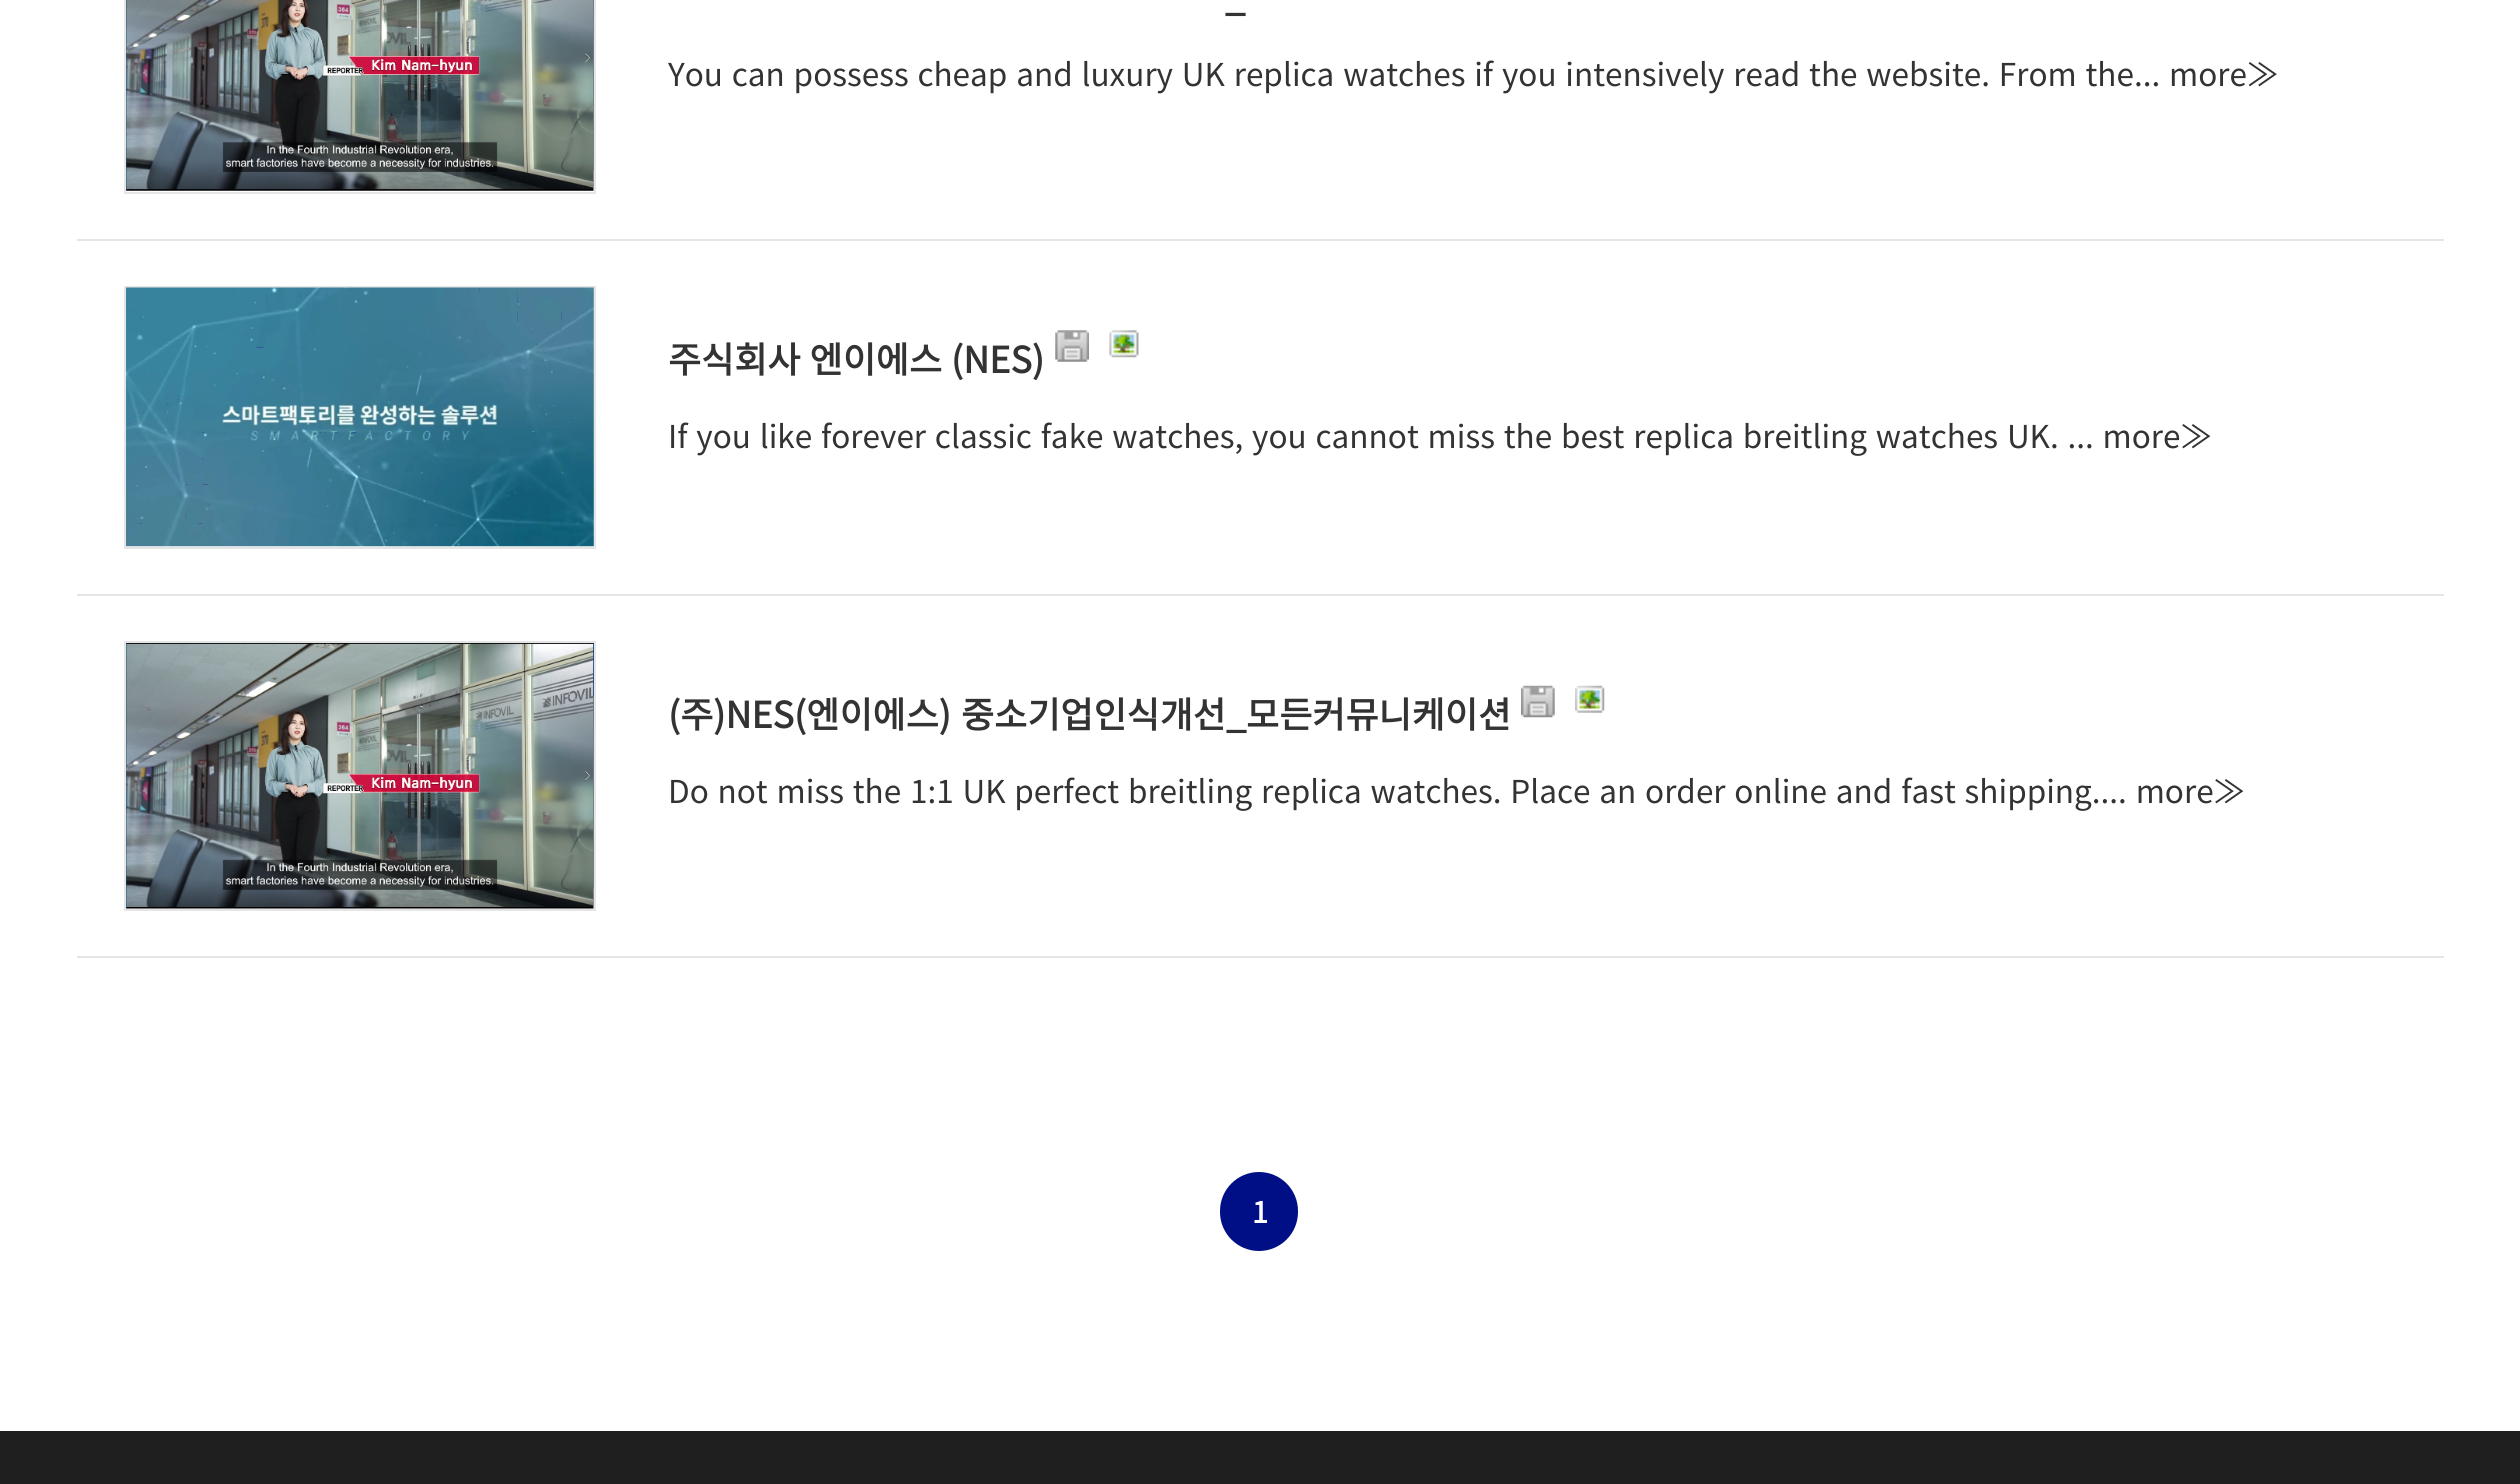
#include <cairo.h>
#include <math.h>
#include <stddef.h>


static void ink(cairo_t *ctx, unsigned color) {
    cairo_set_source_rgb(ctx, (color >> 16) / 255.0, (color >> 8 & 255) / 255.0, (color & 255) / 255.0);
}

static void write_spaced(cairo_t *ctx, double x, double y, const char *s, double letter, double word) {
    cairo_move_to(ctx, x, y);
    while (*s) {
        char ch[5] = {0};
        int n = 0;
        do ch[n++] = *s++; while ((*s & 0xC0) == 0x80);
        cairo_show_text(ctx, ch);
        cairo_rel_move_to(ctx, letter + word * (*ch == ' '), 0);
    }
}

static void round_path(cairo_t *ctx, double x, double y, double w, double h, double r) {
    cairo_new_sub_path(ctx);
    cairo_arc(ctx, x + w - r, y + h - r, r, 0, M_PI / 2);
    cairo_arc(ctx, x + r, y + h - r, r, M_PI / 2, M_PI);
    cairo_arc(ctx, x + r, y + r, r, M_PI, 1.5 * M_PI);
    cairo_arc(ctx, x + w - r, y + r, r, 1.5 * M_PI, 2 * M_PI);
    cairo_close_path(ctx);
}

static void paste(cairo_t *ctx, const char *path, double x, double y, double w, double h) {
    cairo_surface_t *image = cairo_image_surface_create_from_png(path);
    cairo_save(ctx);
    cairo_set_source_surface(ctx, image, x, y);
    cairo_rectangle(ctx, x, y, w, h);
    cairo_fill(ctx);
    cairo_restore(ctx);
    cairo_surface_destroy(image);
}

int main(void) {
    cairo_surface_t *surface = cairo_image_surface_create(CAIRO_FORMAT_RGB24, 2520, 1484);
    cairo_t *ctx = cairo_create(surface);
    cairo_font_options_t *options = cairo_font_options_create();
    cairo_font_options_set_hint_metrics(options, CAIRO_HINT_METRICS_OFF);
    cairo_font_options_set_hint_style(options, CAIRO_HINT_STYLE_NONE);
    cairo_set_font_options(ctx, options);
    cairo_set_miter_limit(ctx, 4);
    ink(ctx, 0xFFFFFF);
    cairo_paint(ctx);
    ink(ctx, 0xE5E5E5);
    cairo_rectangle(ctx, 77, 239, 2367, 2);
    cairo_fill(ctx);
    cairo_rectangle(ctx, 125, -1, 470, 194);
    cairo_stroke(ctx);
    paste(ctx, "media/1.png", 126, 0, 468, 191);
    cairo_select_font_face(ctx, "Noto Sans CJK KR", CAIRO_FONT_SLANT_NORMAL, CAIRO_FONT_WEIGHT_BOLD);
    cairo_set_font_size(ctx, 36);
    ink(ctx, 0x333333);
    write_spaced(ctx, 1225, 11, "_", 0, 2);
    cairo_select_font_face(ctx, "Noto Sans CJK KR", CAIRO_FONT_SLANT_NORMAL, CAIRO_FONT_WEIGHT_NORMAL);
    cairo_set_font_size(ctx, 31.5);
    write_spaced(ctx, 668, 86, "You can possess cheap and luxury UK replica watches if you intensively read the website. From the... more≫", 0, 1.75);
    ink(ctx, 0xE5E5E5);
    cairo_rectangle(ctx, 77, 594, 2367, 2);
    cairo_fill(ctx);
    cairo_rectangle(ctx, 125, 287, 470, 261);
    cairo_stroke(ctx);
    paste(ctx, "media/2.png", 126, 287, 468, 260);
    cairo_select_font_face(ctx, "Noto Sans CJK KR", CAIRO_FONT_SLANT_NORMAL, CAIRO_FONT_WEIGHT_BOLD);
    cairo_set_font_size(ctx, 36);
    ink(ctx, 0x333333);
    write_spaced(ctx, 668, 373, "주식회사 엔이에스 (NES)", 0, 1);
    paste(ctx, "media/3.png", 1055, 330, 34, 32);
    paste(ctx, "media/4.png", 1109, 330, 30, 28);
    cairo_select_font_face(ctx, "Noto Sans CJK KR", CAIRO_FONT_SLANT_NORMAL, CAIRO_FONT_WEIGHT_NORMAL);
    cairo_set_font_size(ctx, 31.5);
    write_spaced(ctx, 668, 448, "If you like forever classic fake watches, you cannot miss the best replica breitling watches UK. ... more≫", 0, 1.75);
    ink(ctx, 0xE5E5E5);
    cairo_rectangle(ctx, 77, 956, 2367, 2);
    cairo_fill(ctx);
    cairo_rectangle(ctx, 125, 642, 470, 268);
    cairo_stroke(ctx);
    paste(ctx, "media/5.png", 126, 643, 468, 266);
    cairo_select_font_face(ctx, "Noto Sans CJK KR", CAIRO_FONT_SLANT_NORMAL, CAIRO_FONT_WEIGHT_BOLD);
    cairo_set_font_size(ctx, 36);
    ink(ctx, 0x333333);
    write_spaced(ctx, 668, 728, "(주)NES(엔이에스) 중소기업인식개선_모든커뮤니케이션", 0, 2);
    paste(ctx, "media/6.png", 1521, 685, 34, 33);
    paste(ctx, "media/7.png", 1575, 685, 30, 28);
    cairo_select_font_face(ctx, "Noto Sans CJK KR", CAIRO_FONT_SLANT_NORMAL, CAIRO_FONT_WEIGHT_NORMAL);
    cairo_set_font_size(ctx, 31.5);
    write_spaced(ctx, 668, 803, "Do not miss the 1:1 UK perfect breitling replica watches. Place an order online and fast shipping.... more≫", 0, 1.75);
    ink(ctx, 0x000F85);
    round_path(ctx, 1220, 1172, 78, 79, 39);
    cairo_fill(ctx);
    cairo_select_font_face(ctx, "Noto Sans CJK KR", CAIRO_FONT_SLANT_NORMAL, CAIRO_FONT_WEIGHT_BOLD);
    cairo_set_font_size(ctx, 29);
    ink(ctx, 0xFFFFFF);
    cairo_move_to(ctx, 1252, 1223);
    cairo_show_text(ctx, "1");
    ink(ctx, 0x1F1F1F);
    cairo_rectangle(ctx, 0, 1431, 2520, 53);
    cairo_fill(ctx);
    cairo_surface_write_to_png(surface, "image.png");
    cairo_font_options_destroy(options);
    cairo_destroy(ctx);
    cairo_surface_destroy(surface);
    return 0;
}
